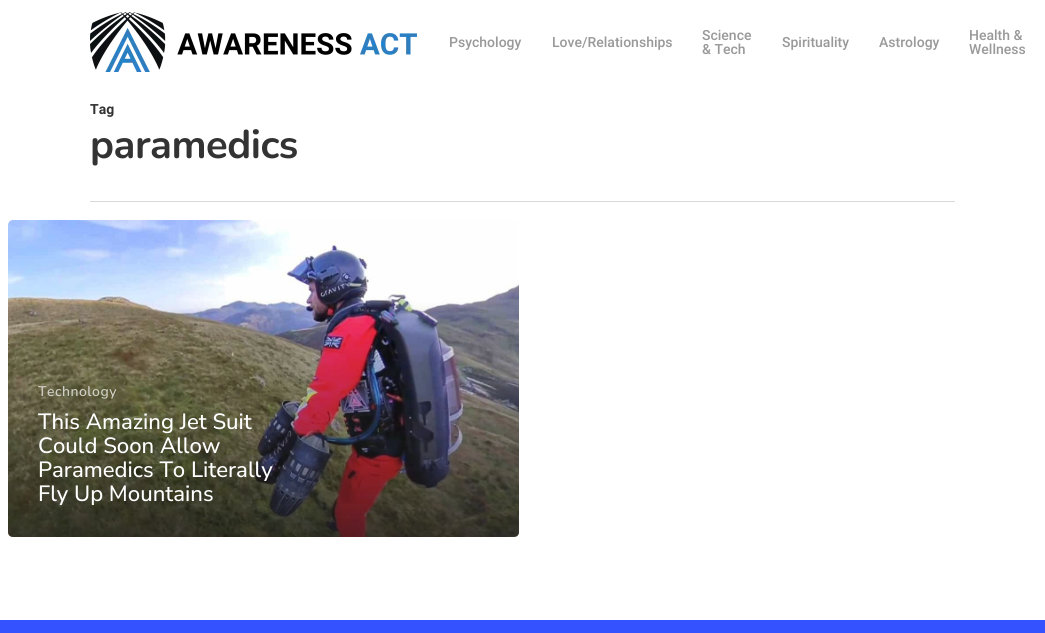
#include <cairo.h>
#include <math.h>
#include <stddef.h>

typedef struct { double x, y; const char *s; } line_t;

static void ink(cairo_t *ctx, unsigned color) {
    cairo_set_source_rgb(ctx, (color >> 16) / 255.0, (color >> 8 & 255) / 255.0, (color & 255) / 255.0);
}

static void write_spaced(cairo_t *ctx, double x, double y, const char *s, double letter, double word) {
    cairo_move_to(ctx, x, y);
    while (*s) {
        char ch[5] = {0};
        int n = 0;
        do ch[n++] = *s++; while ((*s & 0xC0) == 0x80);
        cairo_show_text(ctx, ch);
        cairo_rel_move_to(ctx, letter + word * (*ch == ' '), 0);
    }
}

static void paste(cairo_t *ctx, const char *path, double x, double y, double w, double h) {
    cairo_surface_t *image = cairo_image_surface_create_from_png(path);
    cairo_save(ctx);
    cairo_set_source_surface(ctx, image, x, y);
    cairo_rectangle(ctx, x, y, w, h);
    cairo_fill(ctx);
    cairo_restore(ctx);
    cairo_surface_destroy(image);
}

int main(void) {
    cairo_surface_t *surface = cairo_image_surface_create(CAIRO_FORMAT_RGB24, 1045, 633);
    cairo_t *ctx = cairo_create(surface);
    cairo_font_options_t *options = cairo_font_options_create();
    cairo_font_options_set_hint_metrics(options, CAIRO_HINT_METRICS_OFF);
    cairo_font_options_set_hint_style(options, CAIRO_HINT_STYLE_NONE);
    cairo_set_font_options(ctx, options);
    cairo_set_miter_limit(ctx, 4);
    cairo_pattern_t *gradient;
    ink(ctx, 0xFFFFFF);
    cairo_paint(ctx);
    paste(ctx, "media/1.png", 90, 12, 327, 60);
    cairo_select_font_face(ctx, "Roboto Medium", CAIRO_FONT_SLANT_NORMAL, CAIRO_FONT_WEIGHT_NORMAL);
    cairo_set_font_size(ctx, 14);
    ink(ctx, 0x999999);
    {
        static const line_t items[] = {
            {449, 47, "Psychology"},
            {552, 47, "Love/Relationships"},
            {702, 40, "Science"},
            {702, 54, "& Tech"},
            {782, 47, "Spirituality"},
            {879, 47, "Astrology"},
            {969, 40, "Health &"},
            {969, 54, "Wellness"},
        };
        for (size_t i = 0; i < sizeof items / sizeof *items; i++) {
            cairo_move_to(ctx, items[i].x, items[i].y);
            cairo_show_text(ctx, items[i].s);
        }
    }
    ink(ctx, 0xD9D9D9);
    cairo_rectangle(ctx, 90, 201, 865, 1);
    cairo_fill(ctx);
    cairo_select_font_face(ctx, "Roboto", CAIRO_FONT_SLANT_NORMAL, CAIRO_FONT_WEIGHT_BOLD);
    ink(ctx, 0x333333);
    cairo_move_to(ctx, 90, 114);
    cairo_show_text(ctx, "Tag");
    cairo_select_font_face(ctx, "Nunito", CAIRO_FONT_SLANT_NORMAL, CAIRO_FONT_WEIGHT_BOLD);
    cairo_set_font_size(ctx, 40);
    write_spaced(ctx, 90, 158, "paramedics", -0.5, 0);
    paste(ctx, "media/2.png", 8, 220, 511, 317);
    gradient = cairo_pattern_create_linear(265, 300, 265, 538);
    cairo_pattern_add_color_stop_rgba(gradient, 0, 0.137, 0.137, 0.137, 0);
    cairo_pattern_add_color_stop_rgba(gradient, 1, 0.137, 0.137, 0.137, 0.65);
    cairo_set_source(ctx, gradient);
    cairo_pattern_destroy(gradient);
    cairo_new_path(ctx);
    cairo_move_to(ctx, 8, 300);
    cairo_line_to(ctx, 519, 300);
    cairo_line_to(ctx, 519, 532);
    cairo_curve_to(ctx, 519, 535, 517, 537, 514, 537);
    cairo_line_to(ctx, 13, 537);
    cairo_curve_to(ctx, 10, 537, 8, 535, 8, 532);
    cairo_close_path(ctx);
    cairo_fill(ctx);
    cairo_select_font_face(ctx, "Nunito Sans Medium", CAIRO_FONT_SLANT_NORMAL, CAIRO_FONT_WEIGHT_NORMAL);
    cairo_set_font_size(ctx, 14);
    ink(ctx, 0xD3D2CA);
    write_spaced(ctx, 38, 396, "Technology", 0.5, 0);
    cairo_set_font_size(ctx, 22.1);
    ink(ctx, 0xFFFFFF);
    {
        static const line_t items[] = {
            {38, 429, "This Amazing Jet Suit"},
            {38, 453, "Could Soon Allow"},
            {38, 477, "Paramedics To Literally"},
            {38, 501, "Fly Up Mountains"},
        };
        for (size_t i = 0; i < sizeof items / sizeof *items; i++) {
            cairo_move_to(ctx, items[i].x, items[i].y);
            cairo_show_text(ctx, items[i].s);
        }
    }
    ink(ctx, 0x3452FF);
    cairo_rectangle(ctx, 0, 620, 1045, 13);
    cairo_fill(ctx);
    cairo_surface_write_to_png(surface, "image.png");
    cairo_font_options_destroy(options);
    cairo_destroy(ctx);
    cairo_surface_destroy(surface);
    return 0;
}
